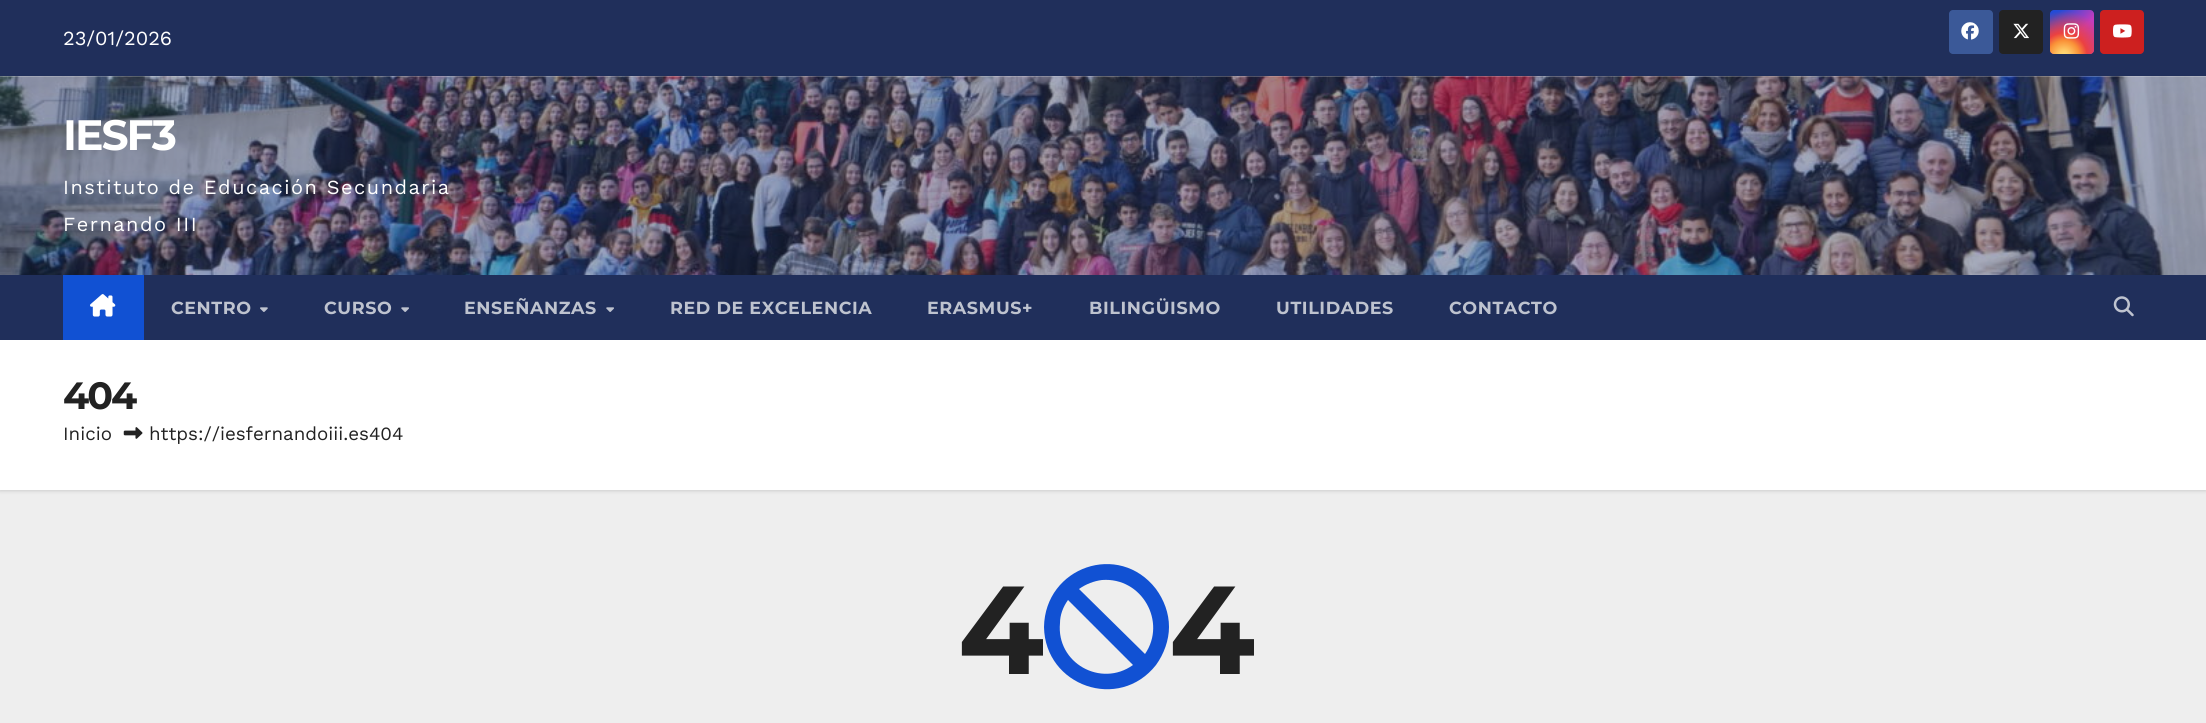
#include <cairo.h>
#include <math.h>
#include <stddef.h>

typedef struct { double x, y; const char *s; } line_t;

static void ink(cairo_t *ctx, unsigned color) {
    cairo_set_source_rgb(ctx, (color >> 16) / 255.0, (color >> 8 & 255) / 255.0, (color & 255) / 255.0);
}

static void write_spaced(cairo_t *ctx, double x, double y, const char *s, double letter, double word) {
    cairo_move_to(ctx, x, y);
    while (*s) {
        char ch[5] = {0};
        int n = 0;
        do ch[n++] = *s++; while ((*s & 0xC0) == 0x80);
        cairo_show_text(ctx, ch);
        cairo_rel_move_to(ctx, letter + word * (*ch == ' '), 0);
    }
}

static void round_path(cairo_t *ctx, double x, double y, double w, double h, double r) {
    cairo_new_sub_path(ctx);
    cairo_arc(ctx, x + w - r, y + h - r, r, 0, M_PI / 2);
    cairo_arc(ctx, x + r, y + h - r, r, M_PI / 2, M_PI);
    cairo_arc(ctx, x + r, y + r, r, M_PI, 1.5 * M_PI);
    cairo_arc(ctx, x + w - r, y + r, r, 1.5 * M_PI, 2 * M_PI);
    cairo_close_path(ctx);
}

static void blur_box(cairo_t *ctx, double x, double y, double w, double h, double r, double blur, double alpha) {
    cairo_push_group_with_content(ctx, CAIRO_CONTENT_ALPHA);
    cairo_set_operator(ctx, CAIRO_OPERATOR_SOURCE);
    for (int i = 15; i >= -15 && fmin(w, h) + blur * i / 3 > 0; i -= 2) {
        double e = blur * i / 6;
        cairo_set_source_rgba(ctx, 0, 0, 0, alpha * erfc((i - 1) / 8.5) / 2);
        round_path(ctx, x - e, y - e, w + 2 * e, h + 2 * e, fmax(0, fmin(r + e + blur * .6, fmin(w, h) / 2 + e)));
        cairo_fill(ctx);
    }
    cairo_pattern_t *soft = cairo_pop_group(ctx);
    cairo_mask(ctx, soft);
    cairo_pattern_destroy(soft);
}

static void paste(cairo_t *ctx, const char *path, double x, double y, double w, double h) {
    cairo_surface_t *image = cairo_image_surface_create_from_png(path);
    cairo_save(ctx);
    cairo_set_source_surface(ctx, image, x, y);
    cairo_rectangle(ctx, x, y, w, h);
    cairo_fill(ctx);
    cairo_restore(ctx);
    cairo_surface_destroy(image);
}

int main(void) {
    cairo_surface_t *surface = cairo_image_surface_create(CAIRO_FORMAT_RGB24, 2206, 723);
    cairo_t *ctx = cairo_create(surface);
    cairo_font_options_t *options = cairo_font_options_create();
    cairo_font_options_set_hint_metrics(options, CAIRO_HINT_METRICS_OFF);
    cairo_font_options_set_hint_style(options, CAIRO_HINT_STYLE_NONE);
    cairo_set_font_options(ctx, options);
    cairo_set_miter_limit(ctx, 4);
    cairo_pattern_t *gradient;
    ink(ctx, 0xEEEEEE);
    cairo_paint(ctx);
    ink(ctx, 0x202F5B);
    cairo_rectangle(ctx, 0, 0, 2206, 76);
    cairo_fill(ctx);
    cairo_select_font_face(ctx, "Work Sans", CAIRO_FONT_SLANT_NORMAL, CAIRO_FONT_WEIGHT_NORMAL);
    cairo_set_font_size(ctx, 20);
    ink(ctx, 0xFFFFFF);
    cairo_move_to(ctx, 63, 45);
    cairo_show_text(ctx, "23/01/2026");
    ink(ctx, 0x3B5998);
    round_path(ctx, 1949, 10, 44, 44, 4);
    cairo_fill(ctx);
    paste(ctx, "media/1.png", 1961, 22, 18, 18);
    ink(ctx, 0x222222);
    round_path(ctx, 1999, 10, 44, 44, 4);
    cairo_fill(ctx);
    paste(ctx, "media/2.png", 2013, 23, 16, 16);
    gradient = cairo_pattern_create_linear(2050, 10, 2094, 54);
    cairo_pattern_add_color_stop_rgba(gradient, 0.12, 0.137, 0.294, 0.843, 1);
    cairo_pattern_add_color_stop_rgba(gradient, 0.58, 0.765, 0.235, 0.745, 1);
    cairo_set_source(ctx, gradient);
    cairo_pattern_destroy(gradient);
    round_path(ctx, 2050, 10, 44, 44, 4);
    cairo_fill(ctx);
    gradient = cairo_pattern_create_radial(2064, 56, 0, 2064, 56, 55);
    cairo_pattern_add_color_stop_rgba(gradient, 0, 1, 0.882, 0.49, 1);
    cairo_pattern_add_color_stop_rgba(gradient, 0.1, 1, 0.804, 0.412, 1);
    cairo_pattern_add_color_stop_rgba(gradient, 0.28, 0.98, 0.569, 0.216, 1);
    cairo_pattern_add_color_stop_rgba(gradient, 0.42, 0.922, 0.255, 0.255, 1);
    cairo_pattern_add_color_stop_rgba(gradient, 0.82, 0.922, 0.255, 0.255, 0);
    cairo_set_source(ctx, gradient);
    cairo_pattern_destroy(gradient);
    round_path(ctx, 2050, 10, 44, 44, 4);
    cairo_fill(ctx);
    paste(ctx, "media/3.png", 2063, 23, 17, 16);
    ink(ctx, 0xCD201F);
    round_path(ctx, 2100, 10, 44, 44, 4);
    cairo_fill(ctx);
    paste(ctx, "media/4.png", 2113, 24, 19, 14);
    paste(ctx, "media/5.png", 0, 76, 2206, 199);
    cairo_select_font_face(ctx, "Montserrat", CAIRO_FONT_SLANT_NORMAL, CAIRO_FONT_WEIGHT_BOLD);
    cairo_set_font_size(ctx, 42.5);
    ink(ctx, 0xFFFFFF);
    write_spaced(ctx, 63, 150, "IESF3", -2, 0);
    cairo_select_font_face(ctx, "Work Sans", CAIRO_FONT_SLANT_NORMAL, CAIRO_FONT_WEIGHT_NORMAL);
    cairo_set_font_size(ctx, 20);
    write_spaced(ctx, 63, 194, "Instituto de Educación Secundaria", 1.5, 0);
    write_spaced(ctx, 63, 231, "Fernando III", 1.5, 0);
    ink(ctx, 0x000000);
    blur_box(ctx, 0, 341, 2206, 150, 0, 2, 0.15);
    ink(ctx, 0x202F5B);
    cairo_rectangle(ctx, 0, 275, 2206, 65);
    cairo_fill(ctx);
    ink(ctx, 0x1151D3);
    cairo_rectangle(ctx, 63, 275, 81, 65);
    cairo_fill(ctx);
    paste(ctx, "media/6.png", 90, 294, 26, 23);
    cairo_select_font_face(ctx, "Montserrat", CAIRO_FONT_SLANT_NORMAL, CAIRO_FONT_WEIGHT_BOLD);
    cairo_set_font_size(ctx, 17.5);
    ink(ctx, 0xBEC3CF);
    write_spaced(ctx, 171, 314, "CENTRO", 0.6, 0);
    paste(ctx, "media/7.png", 260, 307, 8, 5);
    write_spaced(ctx, 324, 314, "CURSO", 0.6, 0);
    paste(ctx, "media/8.png", 401, 307, 8, 5);
    write_spaced(ctx, 464, 314, "ENSEÑANZAS", 0.6, 0);
    paste(ctx, "media/8.png", 606, 307, 8, 5);
    {
        static const line_t items[] = {
            {670, 314, "RED DE EXCELENCIA"},
            {927, 314, "ERASMUS+"},
            {1089, 314, "BILINGÜISMO"},
            {1276, 314, "UTILIDADES"},
            {1449, 314, "CONTACTO"},
        };
        for (size_t i = 0; i < sizeof items / sizeof *items; i++) {
            write_spaced(ctx, items[i].x, items[i].y, items[i].s, 0.6, 0);
        }
    }
    paste(ctx, "media/9.png", 2113, 296, 21, 21);
    ink(ctx, 0xFFFFFF);
    cairo_rectangle(ctx, 0, 340, 2206, 150);
    cairo_fill(ctx);
    cairo_set_font_size(ctx, 38);
    ink(ctx, 0x222222);
    write_spaced(ctx, 63, 409, "404", -2, 0);
    cairo_select_font_face(ctx, "Work Sans", CAIRO_FONT_SLANT_NORMAL, CAIRO_FONT_WEIGHT_NORMAL);
    cairo_set_font_size(ctx, 18.75);
    cairo_move_to(ctx, 63, 440);
    cairo_show_text(ctx, "Inicio");
    paste(ctx, "media/10.png", 123, 427, 20, 12);
    cairo_move_to(ctx, 149, 440);
    cairo_show_text(ctx, "https://iesfernandoiii.es404");
    cairo_select_font_face(ctx, "Montserrat", CAIRO_FONT_SLANT_NORMAL, CAIRO_FONT_WEIGHT_BOLD);
    cairo_set_font_size(ctx, 125);
    write_spaced(ctx, 958, 674, "4", -6, 0);
    ink(ctx, 0x1151D3);
    cairo_new_path(ctx);
    cairo_move_to(ctx, 1133, 665);
    cairo_line_to(ctx, 1068, 600);
    cairo_curve_to(ctx, 1063, 607, 1060, 615, 1060, 623);
    cairo_curve_to(ctx, 1056, 663, 1101, 688, 1133, 665);
    cairo_close_path(ctx);
    cairo_move_to(ctx, 1145, 654);
    cairo_curve_to(ctx, 1167, 622, 1142, 577, 1102, 580);
    cairo_curve_to(ctx, 1094, 581, 1086, 584, 1079, 589);
    cairo_close_path(ctx);
    cairo_move_to(ctx, 1044, 627);
    cairo_curve_to(ctx, 1045, 567, 1119, 541, 1156, 589);
    cairo_curve_to(ctx, 1164, 600, 1169, 613, 1169, 627);
    cairo_curve_to(ctx, 1169, 640, 1164, 654, 1156, 665);
    cairo_curve_to(ctx, 1119, 712, 1045, 686, 1044, 627);
    cairo_close_path(ctx);
    cairo_fill(ctx);
    ink(ctx, 0x222222);
    write_spaced(ctx, 1169, 674, "4", -6, 0);
    cairo_surface_write_to_png(surface, "image.png");
    cairo_font_options_destroy(options);
    cairo_destroy(ctx);
    cairo_surface_destroy(surface);
    return 0;
}
